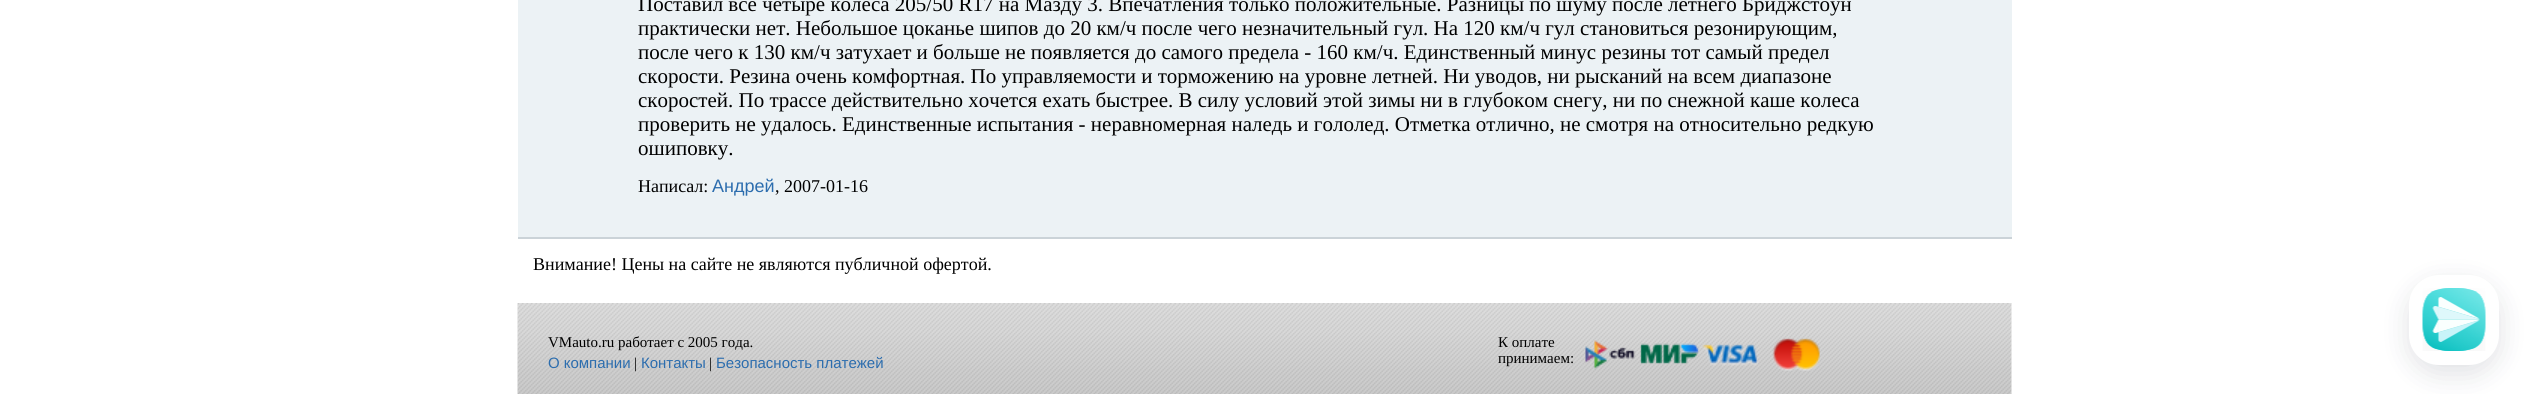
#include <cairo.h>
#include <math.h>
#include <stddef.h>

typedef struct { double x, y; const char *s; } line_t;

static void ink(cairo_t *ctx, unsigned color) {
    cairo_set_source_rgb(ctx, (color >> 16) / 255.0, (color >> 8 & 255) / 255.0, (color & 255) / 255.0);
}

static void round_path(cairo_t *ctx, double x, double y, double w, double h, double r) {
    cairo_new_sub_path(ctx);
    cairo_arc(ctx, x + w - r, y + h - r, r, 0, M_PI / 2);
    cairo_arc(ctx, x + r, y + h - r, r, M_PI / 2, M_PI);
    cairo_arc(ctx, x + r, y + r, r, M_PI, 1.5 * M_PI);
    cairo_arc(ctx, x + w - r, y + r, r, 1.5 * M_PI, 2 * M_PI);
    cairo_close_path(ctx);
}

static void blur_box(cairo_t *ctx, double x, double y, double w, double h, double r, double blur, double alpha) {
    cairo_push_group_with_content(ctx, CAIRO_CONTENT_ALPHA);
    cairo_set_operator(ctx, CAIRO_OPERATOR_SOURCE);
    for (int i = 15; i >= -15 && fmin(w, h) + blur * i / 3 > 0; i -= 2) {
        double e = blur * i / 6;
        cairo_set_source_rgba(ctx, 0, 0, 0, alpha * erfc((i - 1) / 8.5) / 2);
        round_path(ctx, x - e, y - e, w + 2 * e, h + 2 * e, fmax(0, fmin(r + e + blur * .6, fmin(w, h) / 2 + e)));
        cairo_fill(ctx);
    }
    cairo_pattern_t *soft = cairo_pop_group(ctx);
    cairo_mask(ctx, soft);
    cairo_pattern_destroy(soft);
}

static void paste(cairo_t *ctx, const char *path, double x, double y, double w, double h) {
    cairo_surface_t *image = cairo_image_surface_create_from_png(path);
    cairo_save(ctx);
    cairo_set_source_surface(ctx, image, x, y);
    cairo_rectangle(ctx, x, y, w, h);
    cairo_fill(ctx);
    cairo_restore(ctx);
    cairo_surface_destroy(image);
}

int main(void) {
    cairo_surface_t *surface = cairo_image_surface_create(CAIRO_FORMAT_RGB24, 2529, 394);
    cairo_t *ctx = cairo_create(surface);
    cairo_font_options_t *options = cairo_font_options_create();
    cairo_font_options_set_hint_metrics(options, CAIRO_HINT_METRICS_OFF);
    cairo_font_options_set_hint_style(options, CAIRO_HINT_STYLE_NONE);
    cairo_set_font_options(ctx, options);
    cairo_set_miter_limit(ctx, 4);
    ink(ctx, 0xFFFFFF);
    cairo_paint(ctx);
    ink(ctx, 0xECF2F5);
    cairo_rectangle(ctx, 518, 0, 1494, 237);
    cairo_fill(ctx);
    ink(ctx, 0xCBD3D8);
    cairo_rectangle(ctx, 518, 237, 1494, 2);
    cairo_fill(ctx);
    cairo_select_font_face(ctx, "Liberation Serif", CAIRO_FONT_SLANT_NORMAL, CAIRO_FONT_WEIGHT_NORMAL);
    cairo_set_font_size(ctx, 21);
    ink(ctx, 0x000000);
    {
        static const line_t items[] = {
            {638, 11, "Поставил все четыре колеса 205/50 R17 на Мазду 3. Впечатления только положительные. Разницы по шуму после летнего Бриджстоун"},
            {638, 35, "практически нет. Небольшое цоканье шипов до 20 км/ч после чего незначительный гул. На 120 км/ч гул становиться резонирующим,"},
            {638, 59, "после чего к 130 км/ч затухает и больше не появляется до самого предела - 160 км/ч. Единственный минус резины тот самый предел"},
            {638, 83, "скорости. Резина очень комфортная. По управляемости и торможению на уровне летней. Ни уводов, ни рысканий на всем диапазоне"},
            {638, 107, "скоростей. По трассе действительно хочется ехать быстрее. В силу условий этой зимы ни в глубоком снегу, ни по снежной каше колеса"},
            {638, 131, "проверить не удалось. Единственные испытания - неравномерная наледь и гололед. Отметка отлично, не смотря на относительно редкую"},
            {638, 155, "ошиповку."},
        };
        for (size_t i = 0; i < sizeof items / sizeof *items; i++) {
            cairo_move_to(ctx, items[i].x, items[i].y);
            cairo_show_text(ctx, items[i].s);
        }
    }
    cairo_set_font_size(ctx, 18);
    cairo_move_to(ctx, 638, 192);
    cairo_show_text(ctx, "Написал:");
    cairo_select_font_face(ctx, "Liberation Sans", CAIRO_FONT_SLANT_NORMAL, CAIRO_FONT_WEIGHT_NORMAL);
    ink(ctx, 0x2C6DAE);
    cairo_move_to(ctx, 712, 192);
    cairo_show_text(ctx, "Андрей");
    cairo_select_font_face(ctx, "Liberation Serif", CAIRO_FONT_SLANT_NORMAL, CAIRO_FONT_WEIGHT_NORMAL);
    ink(ctx, 0x000000);
    cairo_move_to(ctx, 775, 192);
    cairo_show_text(ctx, ", 2007-01-16");
    cairo_move_to(ctx, 533, 270);
    cairo_show_text(ctx, "Внимание! Цены на сайте не являются публичной офертой.");
    paste(ctx, "media/1.png", 517, 303, 1495, 91);
    cairo_set_font_size(ctx, 15);
    cairo_move_to(ctx, 548, 347);
    cairo_show_text(ctx, "VMauto.ru работает с 2005 года.");
    cairo_select_font_face(ctx, "Liberation Sans", CAIRO_FONT_SLANT_NORMAL, CAIRO_FONT_WEIGHT_NORMAL);
    ink(ctx, 0x2C6DAE);
    cairo_move_to(ctx, 548, 368);
    cairo_show_text(ctx, "О компании");
    cairo_select_font_face(ctx, "Liberation Serif", CAIRO_FONT_SLANT_NORMAL, CAIRO_FONT_WEIGHT_NORMAL);
    ink(ctx, 0x000000);
    cairo_move_to(ctx, 634, 368);
    cairo_show_text(ctx, "|");
    cairo_select_font_face(ctx, "Liberation Sans", CAIRO_FONT_SLANT_NORMAL, CAIRO_FONT_WEIGHT_NORMAL);
    ink(ctx, 0x2C6DAE);
    cairo_move_to(ctx, 641, 368);
    cairo_show_text(ctx, "Контакты");
    cairo_select_font_face(ctx, "Liberation Serif", CAIRO_FONT_SLANT_NORMAL, CAIRO_FONT_WEIGHT_NORMAL);
    ink(ctx, 0x000000);
    cairo_move_to(ctx, 709, 368);
    cairo_show_text(ctx, "|");
    cairo_select_font_face(ctx, "Liberation Sans", CAIRO_FONT_SLANT_NORMAL, CAIRO_FONT_WEIGHT_NORMAL);
    ink(ctx, 0x2C6DAE);
    cairo_move_to(ctx, 716, 368);
    cairo_show_text(ctx, "Безопасность платежей");
    cairo_select_font_face(ctx, "Liberation Serif", CAIRO_FONT_SLANT_NORMAL, CAIRO_FONT_WEIGHT_NORMAL);
    ink(ctx, 0x000000);
    cairo_move_to(ctx, 1498, 347);
    cairo_show_text(ctx, "К оплате");
    cairo_move_to(ctx, 1498, 363);
    cairo_show_text(ctx, "принимаем:");
    paste(ctx, "media/2.png", 1585, 338, 235, 33);
    ink(ctx, 0x0E152F);
    blur_box(ctx, 2409, 284, 90, 90, 30, 13.5, 0.13);
    ink(ctx, 0xFFFFFF);
    round_path(ctx, 2409, 275, 90, 90, 30);
    cairo_fill(ctx);
    paste(ctx, "media/3.png", 2422, 288, 64, 63);
    cairo_surface_write_to_png(surface, "image.png");
    cairo_font_options_destroy(options);
    cairo_destroy(ctx);
    cairo_surface_destroy(surface);
    return 0;
}
